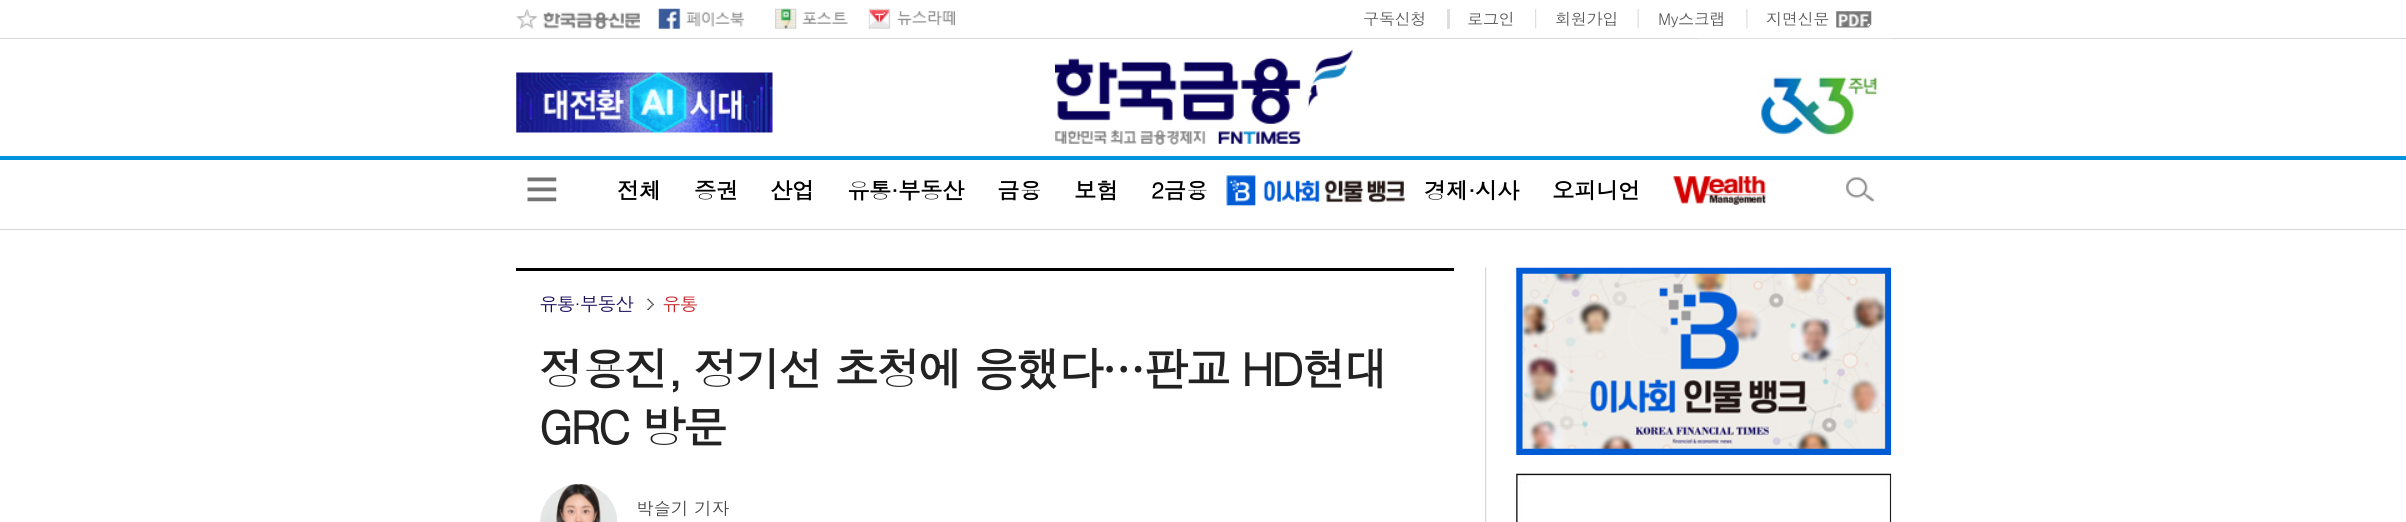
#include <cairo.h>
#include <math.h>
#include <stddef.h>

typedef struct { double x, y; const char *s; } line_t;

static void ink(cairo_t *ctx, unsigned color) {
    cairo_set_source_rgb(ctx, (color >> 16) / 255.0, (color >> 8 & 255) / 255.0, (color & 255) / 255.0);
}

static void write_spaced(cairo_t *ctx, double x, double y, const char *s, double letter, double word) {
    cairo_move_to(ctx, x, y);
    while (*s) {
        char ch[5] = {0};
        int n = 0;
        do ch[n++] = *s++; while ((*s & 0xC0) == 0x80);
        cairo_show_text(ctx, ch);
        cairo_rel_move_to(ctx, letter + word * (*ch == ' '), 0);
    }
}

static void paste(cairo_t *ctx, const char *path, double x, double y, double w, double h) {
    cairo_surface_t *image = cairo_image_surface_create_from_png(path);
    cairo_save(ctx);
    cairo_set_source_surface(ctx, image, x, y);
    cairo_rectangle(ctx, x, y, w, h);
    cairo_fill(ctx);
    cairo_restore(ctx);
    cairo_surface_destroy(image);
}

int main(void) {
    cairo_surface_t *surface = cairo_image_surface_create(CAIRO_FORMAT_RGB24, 2406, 522);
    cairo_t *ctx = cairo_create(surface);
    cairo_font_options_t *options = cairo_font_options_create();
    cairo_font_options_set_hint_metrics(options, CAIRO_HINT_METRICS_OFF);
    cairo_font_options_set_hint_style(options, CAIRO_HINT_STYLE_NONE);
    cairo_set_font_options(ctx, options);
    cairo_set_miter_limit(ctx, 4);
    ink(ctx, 0xFFFFFF);
    cairo_paint(ctx);
    ink(ctx, 0xD8D8D8);
    cairo_rectangle(ctx, 0, 38, 2406, 1);
    cairo_fill(ctx);
    paste(ctx, "media/1.png", 516, 8, 124, 21);
    paste(ctx, "media/2.png", 658, 8, 87, 21);
    paste(ctx, "media/3.png", 775, 8, 73, 21);
    paste(ctx, "media/4.png", 868, 8, 87, 21);
    cairo_select_font_face(ctx, "Dotum", CAIRO_FONT_SLANT_NORMAL, CAIRO_FONT_WEIGHT_NORMAL);
    cairo_set_font_size(ctx, 16.25);
    ink(ctx, 0x575757);
    write_spaced(ctx, 1363, 25, "구독신청", -0.5, 0);
    ink(ctx, 0xDFDFDF);
    cairo_rectangle(ctx, 1447, 9, 3, 20);
    cairo_fill(ctx);
    ink(ctx, 0x575757);
    write_spaced(ctx, 1467, 25, "로그인", -0.5, 0);
    paste(ctx, "media/5.png", 1535, 9, 2, 20);
    write_spaced(ctx, 1555, 25, "회원가입", -0.5, 0);
    paste(ctx, "media/6.png", 1637, 9, 2, 20);
    write_spaced(ctx, 1658, 25, "My스크랩", -0.5, 0);
    paste(ctx, "media/7.png", 1746, 9, 2, 20);
    paste(ctx, "media/8.png", 1836, 11, 36, 17);
    write_spaced(ctx, 1766, 25, "지면신문", -0.5, 0);
    paste(ctx, "media/9.png", 516, 72, 257, 61);
    paste(ctx, "media/10.png", 1055, 50, 298, 95);
    paste(ctx, "media/11.png", 1699, 38, 192, 98);
    ink(ctx, 0x0094DF);
    cairo_rectangle(ctx, 0, 156, 2406, 4);
    cairo_fill(ctx);
    ink(ctx, 0xD8D8D8);
    cairo_rectangle(ctx, 0, 229, 2406, 1);
    cairo_fill(ctx);
    paste(ctx, "media/12.png", 527, 177, 30, 25);
    cairo_select_font_face(ctx, "Dotum", CAIRO_FONT_SLANT_NORMAL, CAIRO_FONT_WEIGHT_BOLD);
    cairo_set_font_size(ctx, 22.5);
    ink(ctx, 0x000000);
    {
        static const line_t items[] = {
            {617, 199, "전체"},
            {694, 199, "증권"},
            {770, 199, "산업"},
            {847, 199, "유통·부동산"},
            {997, 199, "금융"},
            {1074, 199, "보험"},
            {1151, 199, "2금융"},
        };
        for (size_t i = 0; i < sizeof items / sizeof *items; i++) {
            write_spaced(ctx, items[i].x, items[i].y, items[i].s, -0.5, 0);
        }
    }
    paste(ctx, "media/13.png", 1226, 175, 179, 32);
    write_spaced(ctx, 1424, 199, "경제·시사", -0.5, 0);
    write_spaced(ctx, 1552, 199, "오피니언", -0.5, 0);
    paste(ctx, "media/14.png", 1673, 176, 93, 29);
    paste(ctx, "media/15.png", 1846, 177, 28, 25);
    paste(ctx, "media/16.png", 1485, 267, 2, 255);
    cairo_rectangle(ctx, 516, 268, 938, 3);
    cairo_fill(ctx);
    cairo_select_font_face(ctx, "Dotum", CAIRO_FONT_SLANT_NORMAL, CAIRO_FONT_WEIGHT_NORMAL);
    cairo_set_font_size(ctx, 18.75);
    ink(ctx, 0x150958);
    write_spaced(ctx, 539, 311, "유통·부동산", -1, 0);
    paste(ctx, "media/17.png", 647, 298, 7, 12);
    ink(ctx, 0xC9252B);
    write_spaced(ctx, 662, 311, "유통", -1, 0);
    cairo_select_font_face(ctx, "Dotum", CAIRO_FONT_SLANT_NORMAL, CAIRO_FONT_WEIGHT_BOLD);
    cairo_set_font_size(ctx, 45);
    ink(ctx, 0x222222);
    write_spaced(ctx, 539, 386, "정용진, 정기선 초청에 응했다…판교 HD현대", -2.5, 0);
    write_spaced(ctx, 539, 444, "GRC 방문", -2.5, 0);
    paste(ctx, "media/18.png", 540, 483, 78, 39);
    cairo_select_font_face(ctx, "Dotum", CAIRO_FONT_SLANT_NORMAL, CAIRO_FONT_WEIGHT_NORMAL);
    cairo_set_font_size(ctx, 17.5);
    ink(ctx, 0x444444);
    cairo_move_to(ctx, 636, 515);
    cairo_show_text(ctx, "박슬기 기자");
    paste(ctx, "media/19.png", 1516, 267, 376, 188);
    paste(ctx, "media/20.png", 1516, 473, 376, 49);
    cairo_surface_write_to_png(surface, "image.png");
    cairo_font_options_destroy(options);
    cairo_destroy(ctx);
    cairo_surface_destroy(surface);
    return 0;
}
